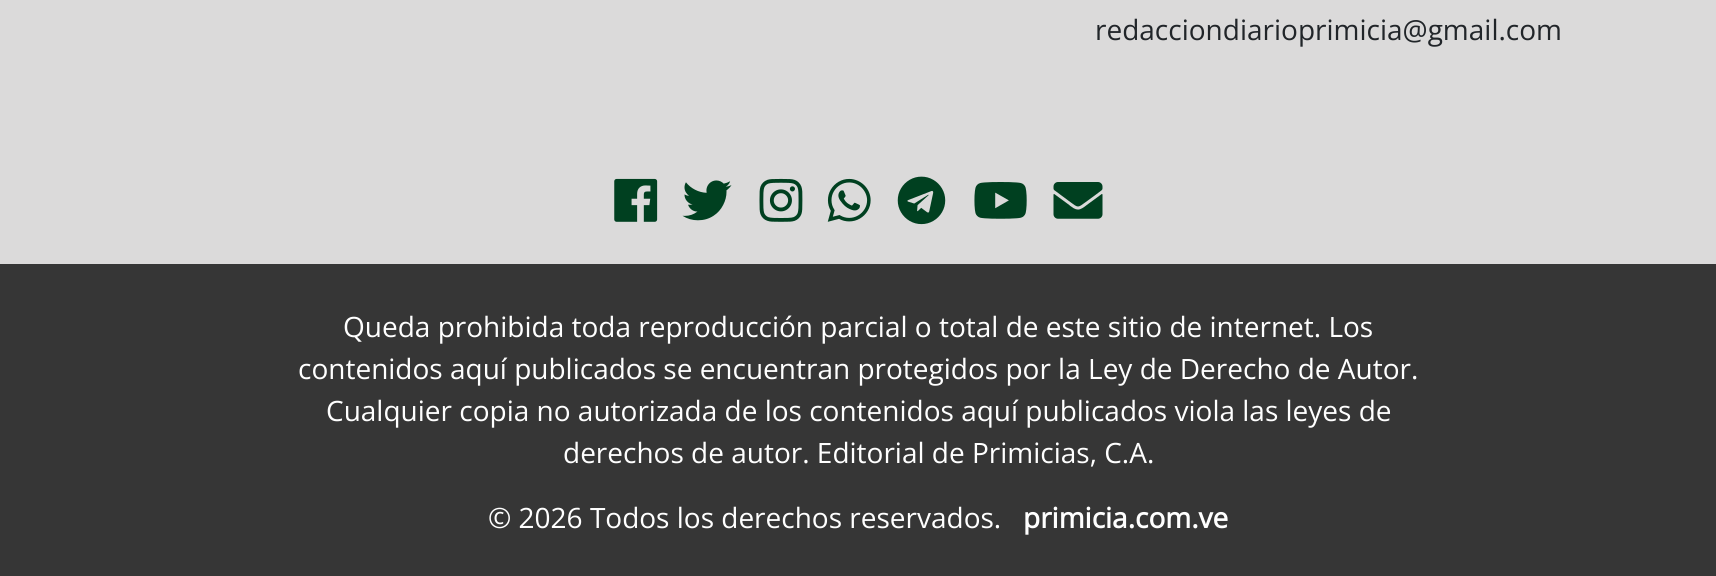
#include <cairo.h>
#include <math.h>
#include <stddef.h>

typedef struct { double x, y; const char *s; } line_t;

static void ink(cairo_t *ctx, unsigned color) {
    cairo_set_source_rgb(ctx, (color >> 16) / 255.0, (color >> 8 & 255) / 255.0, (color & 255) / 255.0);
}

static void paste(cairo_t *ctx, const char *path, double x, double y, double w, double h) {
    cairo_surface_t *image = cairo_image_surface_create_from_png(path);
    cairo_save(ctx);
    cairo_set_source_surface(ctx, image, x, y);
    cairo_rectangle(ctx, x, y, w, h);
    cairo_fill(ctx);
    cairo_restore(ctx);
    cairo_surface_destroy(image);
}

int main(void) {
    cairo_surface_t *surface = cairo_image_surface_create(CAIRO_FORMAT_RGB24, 1716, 576);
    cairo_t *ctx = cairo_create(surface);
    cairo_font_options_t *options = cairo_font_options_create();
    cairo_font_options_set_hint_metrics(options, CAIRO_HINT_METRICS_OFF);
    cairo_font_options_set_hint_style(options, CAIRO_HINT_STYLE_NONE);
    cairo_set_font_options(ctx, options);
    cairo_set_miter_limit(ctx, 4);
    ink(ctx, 0xDBDADA);
    cairo_paint(ctx);
    cairo_select_font_face(ctx, "Open Sans", CAIRO_FONT_SLANT_NORMAL, CAIRO_FONT_WEIGHT_NORMAL);
    cairo_set_font_size(ctx, 28);
    ink(ctx, 0x212529);
    cairo_move_to(ctx, 1095, 40);
    cairo_show_text(ctx, "redacciondiarioprimicia@gmail.com");
    paste(ctx, "media/1.png", 614, 178, 44, 44);
    paste(ctx, "media/2.png", 682, 180, 50, 41);
    paste(ctx, "media/3.png", 759, 178, 44, 44);
    paste(ctx, "media/4.png", 827, 178, 44, 44);
    paste(ctx, "media/5.png", 897, 176, 49, 49);
    paste(ctx, "media/6.png", 974, 182, 53, 37);
    paste(ctx, "media/7.png", 1053, 182, 50, 37);
    ink(ctx, 0x363636);
    cairo_rectangle(ctx, 0, 264, 1716, 312);
    cairo_fill(ctx);
    ink(ctx, 0xFFFFFF);
    {
        static const line_t items[] = {
            {343, 337, "Queda prohibida toda reproducción parcial o total de este sitio de internet. Los"},
            {298, 379, "contenidos aquí publicados se encuentran protegidos por la Ley de Derecho de Autor."},
            {326, 421, "Cualquier copia no autorizada de los contenidos aquí publicados viola las leyes de"},
            {563, 463, "derechos de autor. Editorial de Primicias, C.A."},
            {488, 528, "© 2026 Todos los derechos reservados."},
        };
        for (size_t i = 0; i < sizeof items / sizeof *items; i++) {
            cairo_move_to(ctx, items[i].x, items[i].y);
            cairo_show_text(ctx, items[i].s);
        }
    }
    cairo_select_font_face(ctx, "Open Sans", CAIRO_FONT_SLANT_NORMAL, CAIRO_FONT_WEIGHT_BOLD);
    cairo_move_to(ctx, 1023, 528);
    cairo_show_text(ctx, "primicia.com.ve");
    cairo_surface_write_to_png(surface, "image.png");
    cairo_font_options_destroy(options);
    cairo_destroy(ctx);
    cairo_surface_destroy(surface);
    return 0;
}
